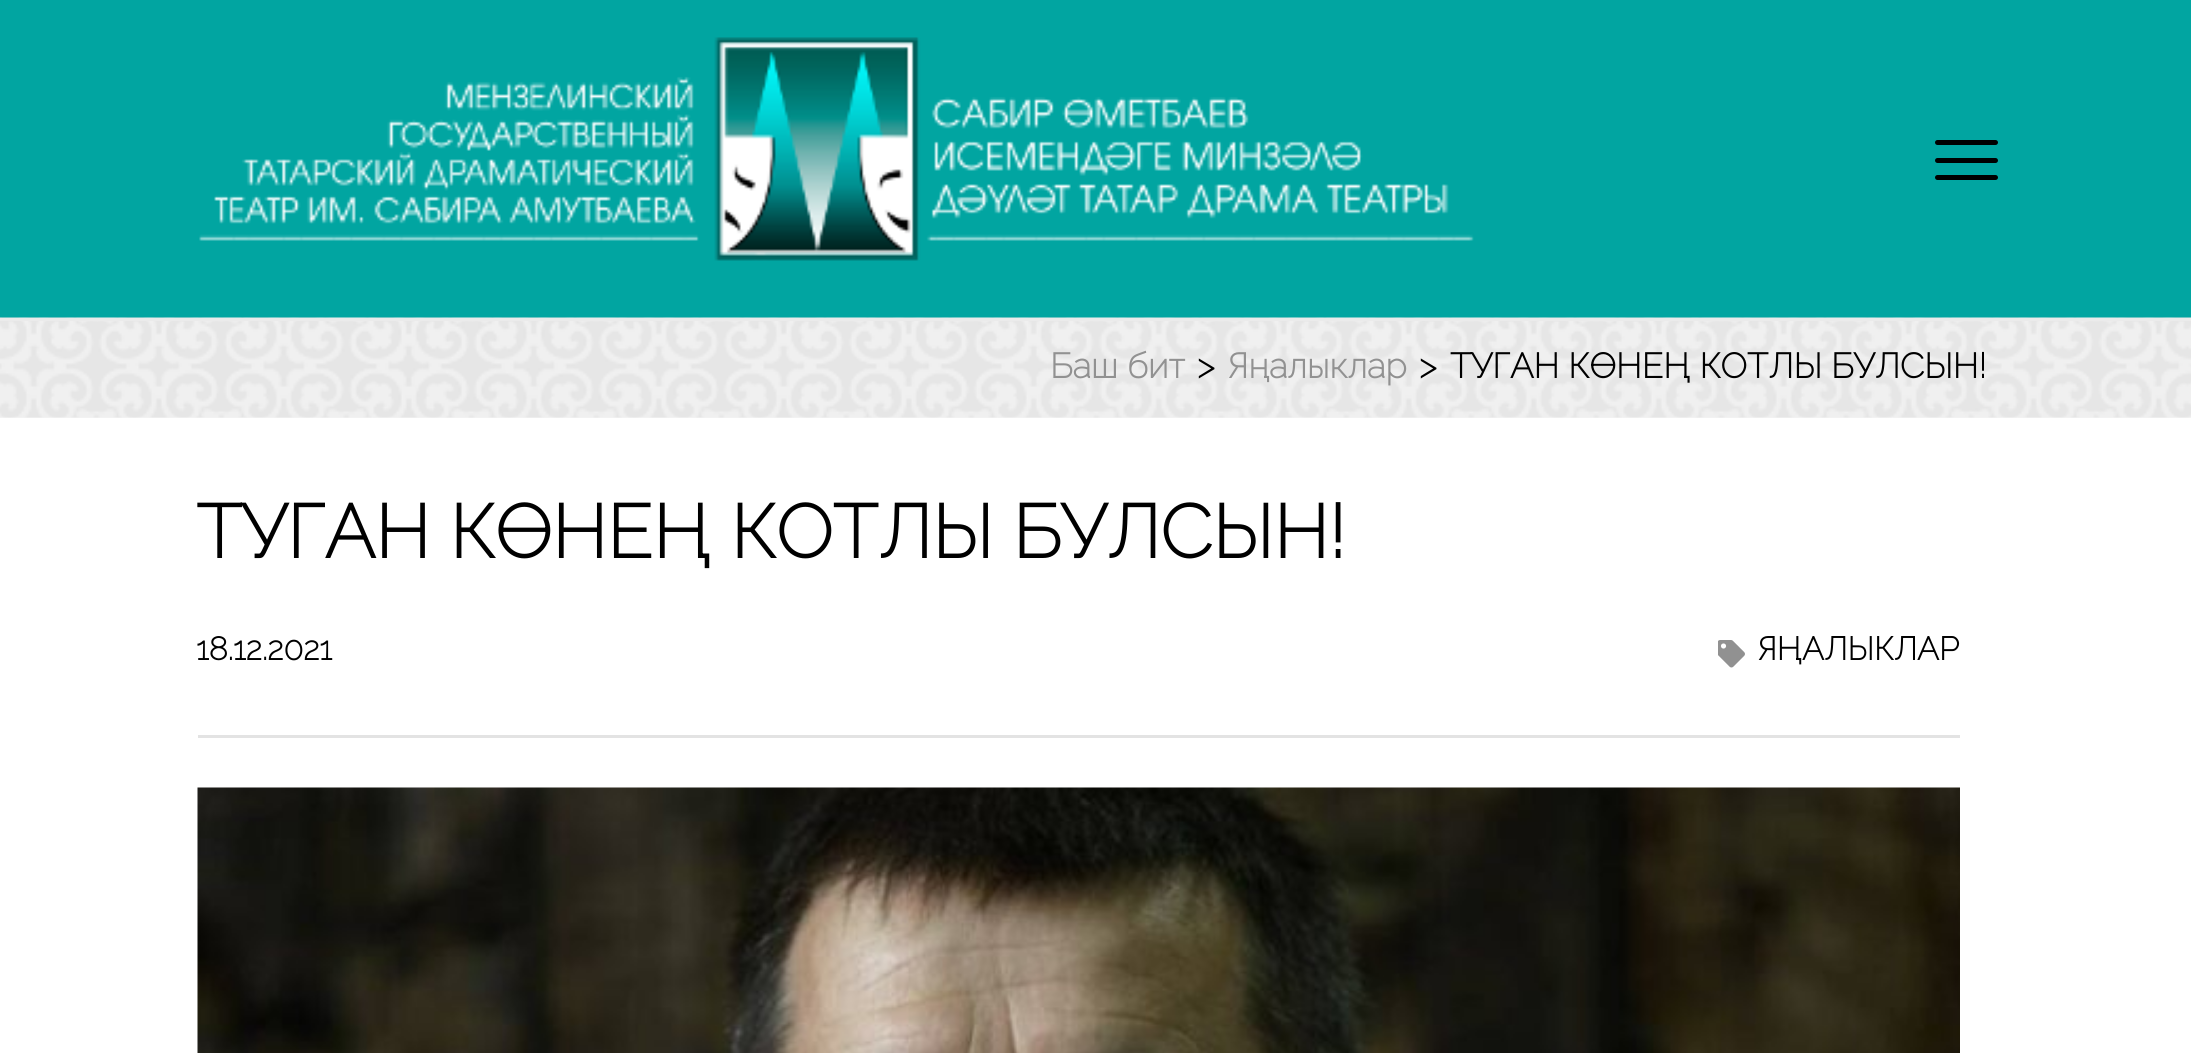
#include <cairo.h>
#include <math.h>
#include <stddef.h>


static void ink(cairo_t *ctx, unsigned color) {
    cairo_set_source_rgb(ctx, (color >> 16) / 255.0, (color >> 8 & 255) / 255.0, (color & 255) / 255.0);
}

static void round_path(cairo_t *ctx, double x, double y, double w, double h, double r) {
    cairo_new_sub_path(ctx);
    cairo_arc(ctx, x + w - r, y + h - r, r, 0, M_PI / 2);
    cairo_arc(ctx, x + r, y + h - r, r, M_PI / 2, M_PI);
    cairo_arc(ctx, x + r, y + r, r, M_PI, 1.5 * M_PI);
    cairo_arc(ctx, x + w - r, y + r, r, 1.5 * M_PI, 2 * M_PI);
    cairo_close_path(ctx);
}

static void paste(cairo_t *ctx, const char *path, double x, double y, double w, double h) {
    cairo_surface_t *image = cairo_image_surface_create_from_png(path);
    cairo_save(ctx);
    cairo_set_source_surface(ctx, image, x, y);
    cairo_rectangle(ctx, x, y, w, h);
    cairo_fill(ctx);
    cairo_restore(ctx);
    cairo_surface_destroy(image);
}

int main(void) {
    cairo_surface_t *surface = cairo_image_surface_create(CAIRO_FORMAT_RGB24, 2191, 1053);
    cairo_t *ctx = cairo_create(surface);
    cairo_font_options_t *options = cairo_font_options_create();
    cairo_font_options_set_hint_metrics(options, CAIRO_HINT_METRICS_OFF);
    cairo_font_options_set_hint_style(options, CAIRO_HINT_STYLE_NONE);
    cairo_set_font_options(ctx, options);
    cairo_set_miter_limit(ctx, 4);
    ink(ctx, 0xFFFFFF);
    cairo_paint(ctx);
    ink(ctx, 0x01A5A1);
    cairo_rectangle(ctx, 0, 0, 2191, 318);
    cairo_fill(ctx);
    paste(ctx, "media/1.png", 199, 37, 1275, 224);
    ink(ctx, 0x000000);
    round_path(ctx, 1935, 140, 63, 5, 2.5);
    cairo_fill(ctx);
    round_path(ctx, 1935, 158, 63, 5, 2.5);
    cairo_fill(ctx);
    round_path(ctx, 1935, 175, 63, 5, 2.5);
    cairo_fill(ctx);
    ink(ctx, 0xF4F4F4);
    cairo_rectangle(ctx, 0, 417, 2191, 1);
    cairo_fill(ctx);
    paste(ctx, "media/2.png", 0, 317, 2191, 101);
    ink(ctx, 0xEBEBEB);
    cairo_rectangle(ctx, 0, 318, 2191, 3);
    cairo_fill(ctx);
    cairo_select_font_face(ctx, "Raleway", CAIRO_FONT_SLANT_NORMAL, CAIRO_FONT_WEIGHT_BOLD);
    cairo_set_font_size(ctx, 35);
    ink(ctx, 0x919191);
    cairo_move_to(ctx, 1050, 378);
    cairo_show_text(ctx, "Баш бит");
    ink(ctx, 0x000000);
    cairo_move_to(ctx, 1197, 378);
    cairo_show_text(ctx, ">");
    ink(ctx, 0x919191);
    cairo_move_to(ctx, 1227, 378);
    cairo_show_text(ctx, "Яңалыклар");
    ink(ctx, 0x000000);
    cairo_move_to(ctx, 1419, 378);
    cairo_show_text(ctx, ">");
    cairo_move_to(ctx, 1450, 378);
    cairo_show_text(ctx, "ТУГАН КӨНЕҢ КОТЛЫ БУЛСЫН!");
    ink(ctx, 0xE3E3E3);
    cairo_rectangle(ctx, 198, 735, 1762, 3);
    cairo_fill(ctx);
    cairo_set_font_size(ctx, 75);
    ink(ctx, 0x000000);
    cairo_move_to(ctx, 196, 558);
    cairo_show_text(ctx, "ТУГАН КӨНЕҢ КОТЛЫ БУЛСЫН!");
    cairo_set_font_size(ctx, 32.5);
    cairo_move_to(ctx, 196, 660);
    cairo_show_text(ctx, "18.12.2021");
    paste(ctx, "media/3.png", 1718, 640, 27, 28);
    cairo_move_to(ctx, 1757, 660);
    cairo_show_text(ctx, "ЯҢАЛЫКЛАР");
    paste(ctx, "media/4.png", 197, 787, 1763, 266);
    cairo_surface_write_to_png(surface, "image.png");
    cairo_font_options_destroy(options);
    cairo_destroy(ctx);
    cairo_surface_destroy(surface);
    return 0;
}
